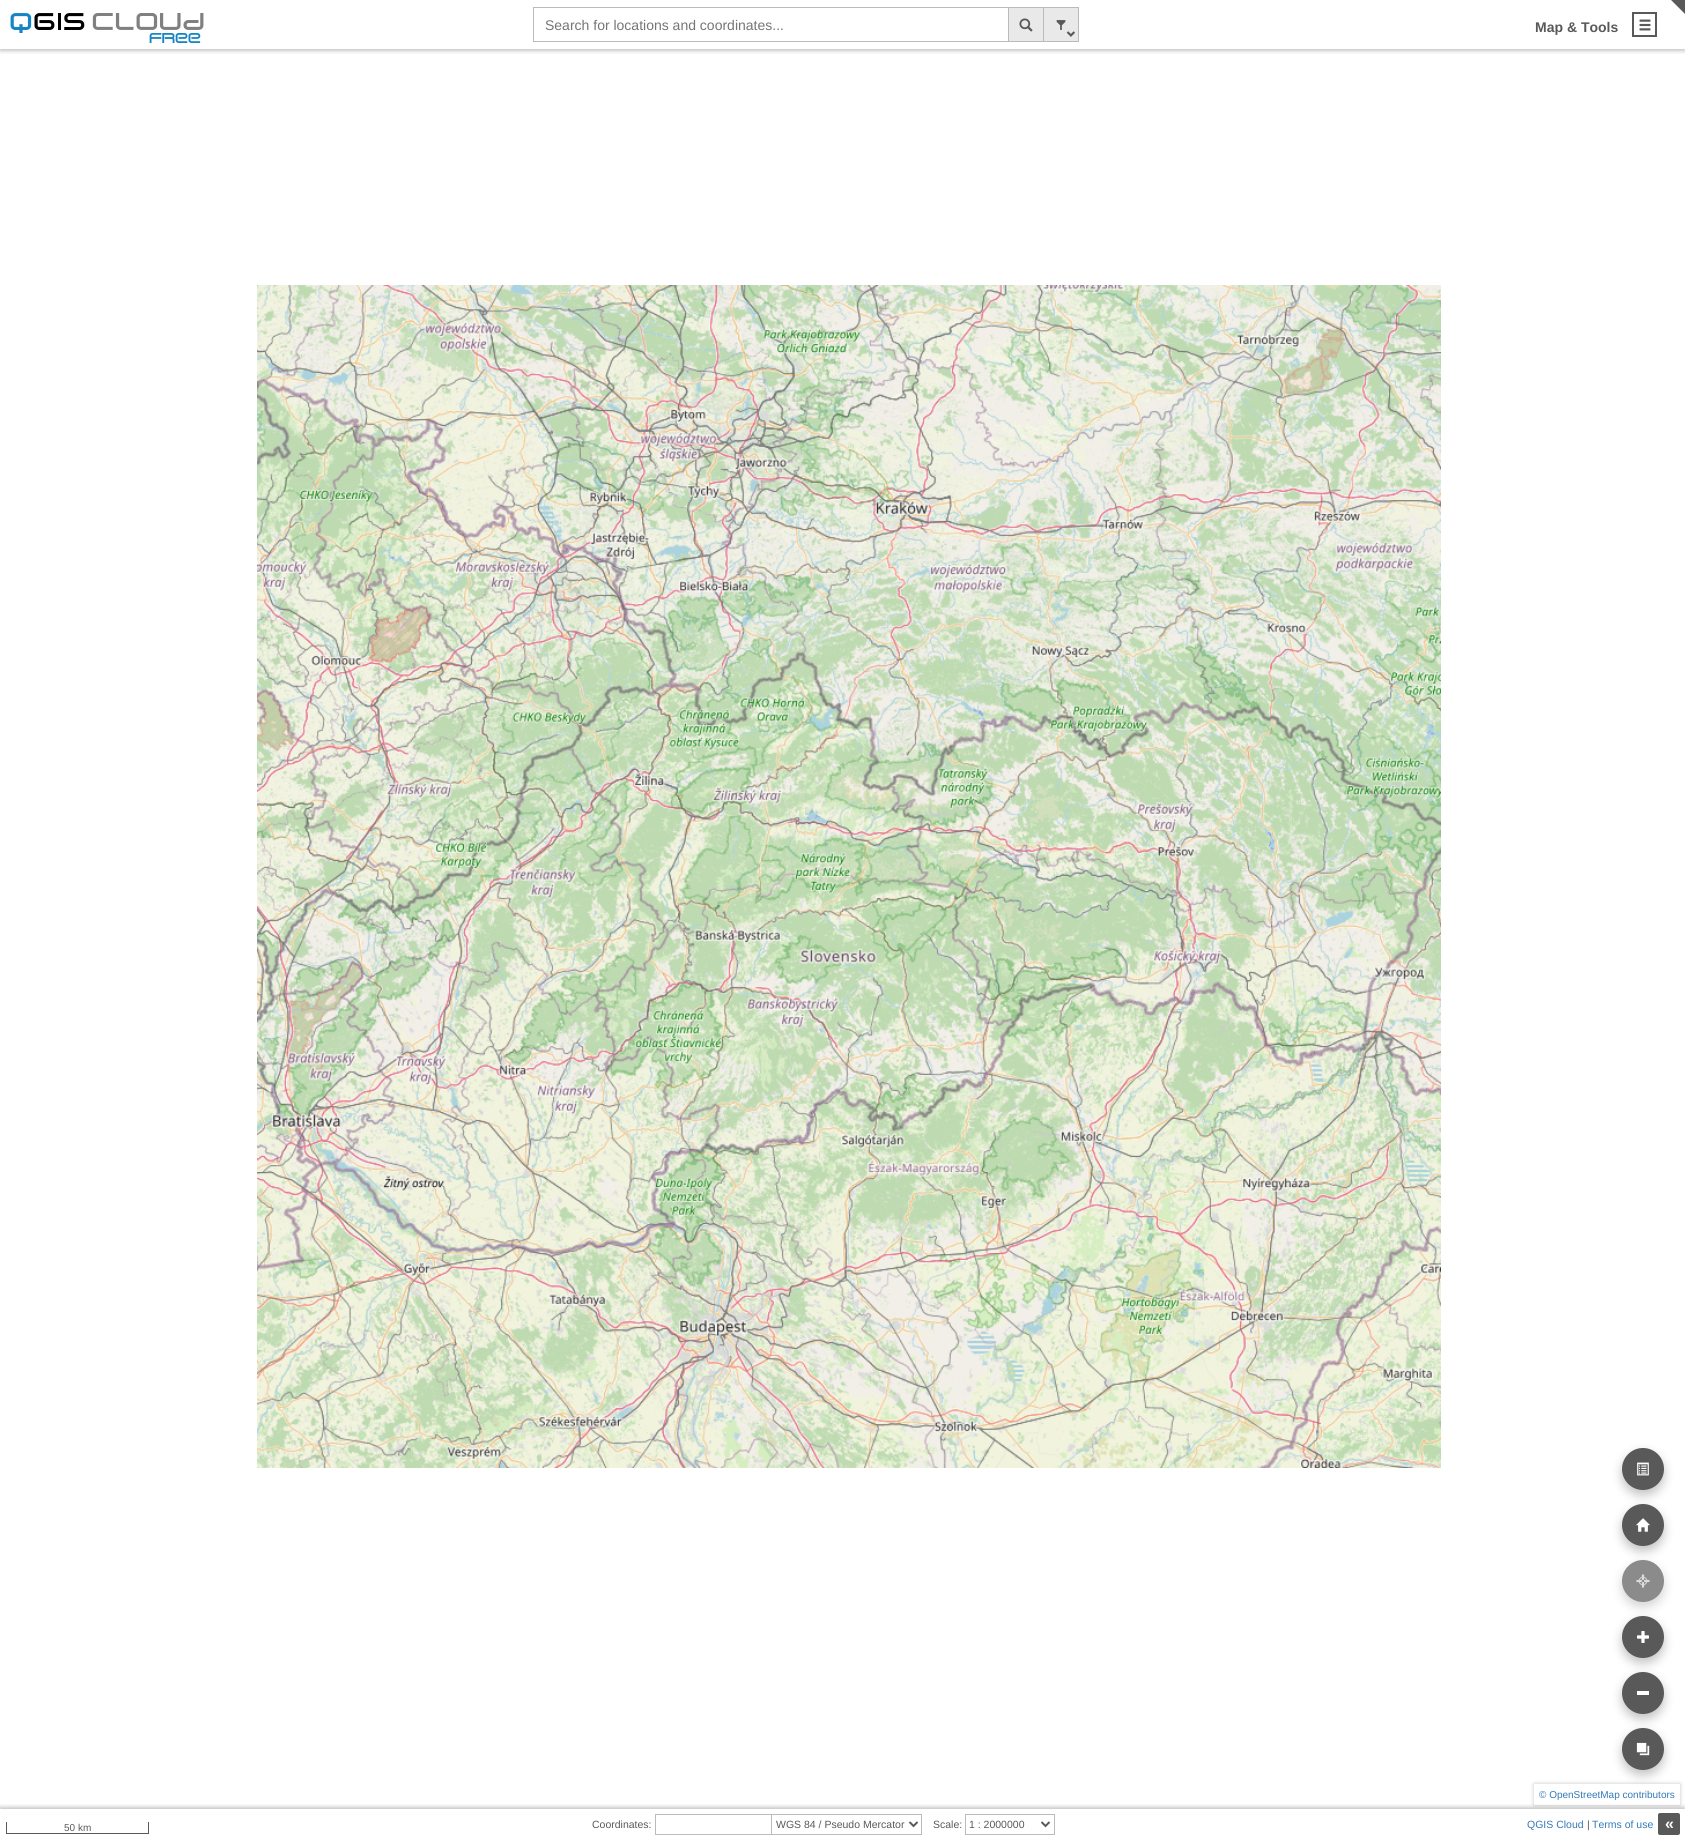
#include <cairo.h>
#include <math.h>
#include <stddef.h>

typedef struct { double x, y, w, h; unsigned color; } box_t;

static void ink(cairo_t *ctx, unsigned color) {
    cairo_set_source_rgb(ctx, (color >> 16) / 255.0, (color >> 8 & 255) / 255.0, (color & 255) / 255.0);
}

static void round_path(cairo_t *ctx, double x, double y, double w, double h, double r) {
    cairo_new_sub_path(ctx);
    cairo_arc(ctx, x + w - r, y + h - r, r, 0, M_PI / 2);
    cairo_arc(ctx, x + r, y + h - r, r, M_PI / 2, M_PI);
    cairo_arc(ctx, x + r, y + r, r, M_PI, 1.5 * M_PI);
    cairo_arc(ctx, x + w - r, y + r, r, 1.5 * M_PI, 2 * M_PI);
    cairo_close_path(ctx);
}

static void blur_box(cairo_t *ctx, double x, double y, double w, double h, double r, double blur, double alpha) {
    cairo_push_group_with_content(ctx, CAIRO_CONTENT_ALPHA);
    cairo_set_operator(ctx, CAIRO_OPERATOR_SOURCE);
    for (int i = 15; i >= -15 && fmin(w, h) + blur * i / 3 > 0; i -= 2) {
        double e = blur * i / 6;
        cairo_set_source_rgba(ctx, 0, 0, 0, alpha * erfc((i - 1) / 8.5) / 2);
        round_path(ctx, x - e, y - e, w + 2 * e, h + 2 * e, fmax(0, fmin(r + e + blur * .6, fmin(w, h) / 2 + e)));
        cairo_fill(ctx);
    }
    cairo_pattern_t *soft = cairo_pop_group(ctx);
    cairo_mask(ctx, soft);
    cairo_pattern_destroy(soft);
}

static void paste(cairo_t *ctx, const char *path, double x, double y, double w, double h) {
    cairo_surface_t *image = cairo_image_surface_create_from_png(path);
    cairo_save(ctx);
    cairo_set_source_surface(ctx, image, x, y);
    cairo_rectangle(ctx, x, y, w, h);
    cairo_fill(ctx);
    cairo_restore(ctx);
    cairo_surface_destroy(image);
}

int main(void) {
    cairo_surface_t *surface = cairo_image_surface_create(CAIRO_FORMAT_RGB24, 1685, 1840);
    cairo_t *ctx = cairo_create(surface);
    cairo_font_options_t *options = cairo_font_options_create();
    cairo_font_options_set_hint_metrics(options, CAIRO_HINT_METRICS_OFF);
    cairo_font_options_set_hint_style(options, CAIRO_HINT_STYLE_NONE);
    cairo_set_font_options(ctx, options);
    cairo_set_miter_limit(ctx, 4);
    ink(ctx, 0xFFFFFF);
    cairo_paint(ctx);
    cairo_save(ctx);
    cairo_rectangle(ctx, 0, 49, 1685, 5);
    cairo_clip(ctx);
    ink(ctx, 0x888888);
    blur_box(ctx, 0, 2, 1685, 49, 0, 2, 0.5);
    cairo_restore(ctx);
    ink(ctx, 0x595959);
    cairo_new_path(ctx);
    cairo_move_to(ctx, 1685, 0);
    cairo_line_to(ctx, 1685, 14);
    cairo_line_to(ctx, 1671, 0);
    cairo_close_path(ctx);
    cairo_fill(ctx);
    paste(ctx, "media/1.png", 10, 13, 194, 30);
    cairo_rectangle(ctx, 533.5, 7.5, 475, 34);
    ink(ctx, 0xBBBBBB);
    cairo_set_line_width(ctx, 1);
    cairo_stroke(ctx);
    cairo_select_font_face(ctx, "Liberation Sans", CAIRO_FONT_SLANT_NORMAL, CAIRO_FONT_WEIGHT_NORMAL);
    cairo_set_font_size(ctx, 14);
    ink(ctx, 0x757575);
    cairo_move_to(ctx, 545, 30);
    cairo_show_text(ctx, "Search for locations and coordinates...");
    {
        static const box_t items[] = {
            {1009, 8, 34, 33, 0xE9E9E9},
            {1009, 7, 70, 1, 0xBBBBBB},
            {1043, 7, 1, 35, 0xBBBBBB},
            {1009, 41, 35, 1, 0xBBBBBB},
        };
        for (size_t i = 0; i < sizeof items / sizeof *items; i++) {
            ink(ctx, items[i].color);
            cairo_rectangle(ctx, items[i].x, items[i].y, items[i].w, items[i].h);
            cairo_fill(ctx);
        }
    }
    paste(ctx, "media/2.png", 1019, 18, 14, 14);
    {
        static const box_t items[] = {
            {1044, 8, 34, 33, 0xE9E9E9},
            {1078, 7, 1, 35, 0xBBBBBB},
            {1044, 41, 35, 1, 0xBBBBBB},
        };
        for (size_t i = 0; i < sizeof items / sizeof *items; i++) {
            ink(ctx, items[i].color);
            cairo_rectangle(ctx, items[i].x, items[i].y, items[i].w, items[i].h);
            cairo_fill(ctx);
        }
    }
    paste(ctx, "media/3.png", 1056, 20, 10, 10);
    paste(ctx, "media/4.png", 1066, 31, 9, 6);
    cairo_select_font_face(ctx, "Liberation Sans", CAIRO_FONT_SLANT_NORMAL, CAIRO_FONT_WEIGHT_BOLD);
    ink(ctx, 0x595959);
    cairo_move_to(ctx, 1535, 32);
    cairo_show_text(ctx, "Map & Tools");
    cairo_rectangle(ctx, 1633, 13, 23, 23);
    cairo_set_line_width(ctx, 2);
    cairo_stroke(ctx);
    paste(ctx, "media/5.png", 1639, 19, 12, 12);
    ink(ctx, 0x888888);
    blur_box(ctx, 1622, 1453, 42, 42, 21, 5, 0.5);
    ink(ctx, 0x595959);
    cairo_arc(ctx, 1643, 1469, 21, 0, 2 * M_PI);
    cairo_fill(ctx);
    paste(ctx, "media/6.png", 1637, 1462, 12, 14);
    ink(ctx, 0x888888);
    blur_box(ctx, 1622, 1509, 42, 42, 21, 5, 0.5);
    ink(ctx, 0x595959);
    cairo_arc(ctx, 1643, 1525, 21, 0, 2 * M_PI);
    cairo_fill(ctx);
    paste(ctx, "media/7.png", 1636, 1518, 14, 14);
    ink(ctx, 0x888888);
    blur_box(ctx, 1622, 1565, 42, 42, 21, 5, 0.35);
    ink(ctx, 0x8B8B8B);
    cairo_arc(ctx, 1643, 1581, 21, 0, 2 * M_PI);
    cairo_fill(ctx);
    paste(ctx, "media/8.png", 1636, 1574, 14, 14);
    ink(ctx, 0x888888);
    blur_box(ctx, 1622, 1621, 42, 42, 21, 5, 0.5);
    ink(ctx, 0x595959);
    cairo_arc(ctx, 1643, 1637, 21, 0, 2 * M_PI);
    cairo_fill(ctx);
    paste(ctx, "media/9.png", 1637, 1631, 12, 12);
    ink(ctx, 0x888888);
    blur_box(ctx, 1622, 1677, 42, 42, 21, 5, 0.5);
    ink(ctx, 0x595959);
    cairo_arc(ctx, 1643, 1693, 21, 0, 2 * M_PI);
    cairo_fill(ctx);
    ink(ctx, 0xFFFFFF);
    cairo_rectangle(ctx, 1637, 1691, 12, 4);
    cairo_fill(ctx);
    ink(ctx, 0x888888);
    blur_box(ctx, 1622, 1733, 42, 42, 21, 5, 0.5);
    ink(ctx, 0x595959);
    cairo_arc(ctx, 1643, 1749, 21, 0, 2 * M_PI);
    cairo_fill(ctx);
    paste(ctx, "media/10.png", 1636, 1742, 14, 14);
    cairo_save(ctx);
    cairo_set_fill_rule(ctx, CAIRO_FILL_RULE_EVEN_ODD);
    cairo_new_path(ctx);
    cairo_move_to(ctx, 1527, 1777);
    cairo_line_to(ctx, 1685, 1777);
    cairo_line_to(ctx, 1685, 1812);
    cairo_line_to(ctx, 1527, 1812);
    cairo_close_path(ctx);
    cairo_move_to(ctx, 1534, 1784);
    cairo_line_to(ctx, 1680, 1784);
    cairo_line_to(ctx, 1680, 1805);
    cairo_line_to(ctx, 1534, 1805);
    cairo_close_path(ctx);
    cairo_clip(ctx);
    ink(ctx, 0x888888);
    blur_box(ctx, 1534, 1784, 146, 21, 0, 2, 0.5);
    cairo_restore(ctx);
    cairo_select_font_face(ctx, "Liberation Sans", CAIRO_FONT_SLANT_NORMAL, CAIRO_FONT_WEIGHT_NORMAL);
    cairo_set_font_size(ctx, 10);
    ink(ctx, 0x337AB7);
    cairo_move_to(ctx, 1539, 1798);
    cairo_show_text(ctx, "© OpenStreetMap contributors");
    cairo_save(ctx);
    cairo_rectangle(ctx, 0, 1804, 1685, 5);
    cairo_clip(ctx);
    ink(ctx, 0x888888);
    blur_box(ctx, 0, 1807, 1685, 31, 0, 2, 0.5);
    cairo_restore(ctx);
    cairo_set_font_size(ctx, 10.5);
    ink(ctx, 0x595959);
    cairo_move_to(ctx, 592, 1828);
    cairo_show_text(ctx, "Coordinates:");
    {
        static const box_t items[] = {
            {655, 1814, 116, 1, 0xBBBBBB},
            {655, 1834, 116, 1, 0xBBBBBB},
            {655, 1814, 1, 21, 0xBBBBBB},
        };
        for (size_t i = 0; i < sizeof items / sizeof *items; i++) {
            ink(ctx, items[i].color);
            cairo_rectangle(ctx, items[i].x, items[i].y, items[i].w, items[i].h);
            cairo_fill(ctx);
        }
    }
    cairo_rectangle(ctx, 771.5, 1814.5, 150, 20);
    cairo_set_line_width(ctx, 1);
    cairo_stroke(ctx);
    cairo_new_path(ctx);
    cairo_move_to(ctx, 909.5, 1822);
    cairo_line_to(ctx, 913.5, 1826);
    cairo_line_to(ctx, 917.5, 1822);
    ink(ctx, 0x595959);
    cairo_set_line_width(ctx, 2);
    cairo_stroke(ctx);
    cairo_move_to(ctx, 776, 1828);
    cairo_show_text(ctx, "WGS 84 / Pseudo Mercator");
    cairo_move_to(ctx, 933, 1828);
    cairo_show_text(ctx, "Scale:");
    cairo_rectangle(ctx, 965.5, 1814.5, 89, 20);
    ink(ctx, 0xBBBBBB);
    cairo_set_line_width(ctx, 1);
    cairo_stroke(ctx);
    ink(ctx, 0x595959);
    cairo_move_to(ctx, 969, 1828);
    cairo_show_text(ctx, "1 : 2000000");
    cairo_new_path(ctx);
    cairo_move_to(ctx, 1041.5, 1822);
    cairo_line_to(ctx, 1045.5, 1826);
    cairo_line_to(ctx, 1049.5, 1822);
    cairo_set_line_width(ctx, 2);
    cairo_stroke(ctx);
    ink(ctx, 0x337AB7);
    cairo_move_to(ctx, 1527, 1828);
    cairo_show_text(ctx, "QGIS Cloud");
    ink(ctx, 0x595959);
    cairo_move_to(ctx, 1587, 1828);
    cairo_show_text(ctx, "|");
    ink(ctx, 0x337AB7);
    cairo_move_to(ctx, 1592, 1828);
    cairo_show_text(ctx, "Terms of use");
    paste(ctx, "media/11.png", 257, 285, 1184, 1183);
    {
        static const box_t items[] = {
            {148, 1822, 1, 12, 0x595959},
            {6, 1833, 143, 1, 0x595959},
            {6, 1822, 1, 12, 0x595959},
        };
        for (size_t i = 0; i < sizeof items / sizeof *items; i++) {
            ink(ctx, items[i].color);
            cairo_rectangle(ctx, items[i].x, items[i].y, items[i].w, items[i].h);
            cairo_fill(ctx);
        }
    }
    cairo_set_font_size(ctx, 10);
    cairo_move_to(ctx, 64, 1831);
    cairo_show_text(ctx, "50 km");
    round_path(ctx, 1658, 1813, 22, 22, 2);
    cairo_fill(ctx);
    cairo_select_font_face(ctx, "Liberation Sans", CAIRO_FONT_SLANT_NORMAL, CAIRO_FONT_WEIGHT_BOLD);
    cairo_set_font_size(ctx, 16);
    ink(ctx, 0xFFFFFF);
    cairo_move_to(ctx, 1665, 1829);
    cairo_show_text(ctx, "«");
    cairo_surface_write_to_png(surface, "image.png");
    cairo_font_options_destroy(options);
    cairo_destroy(ctx);
    cairo_surface_destroy(surface);
    return 0;
}
